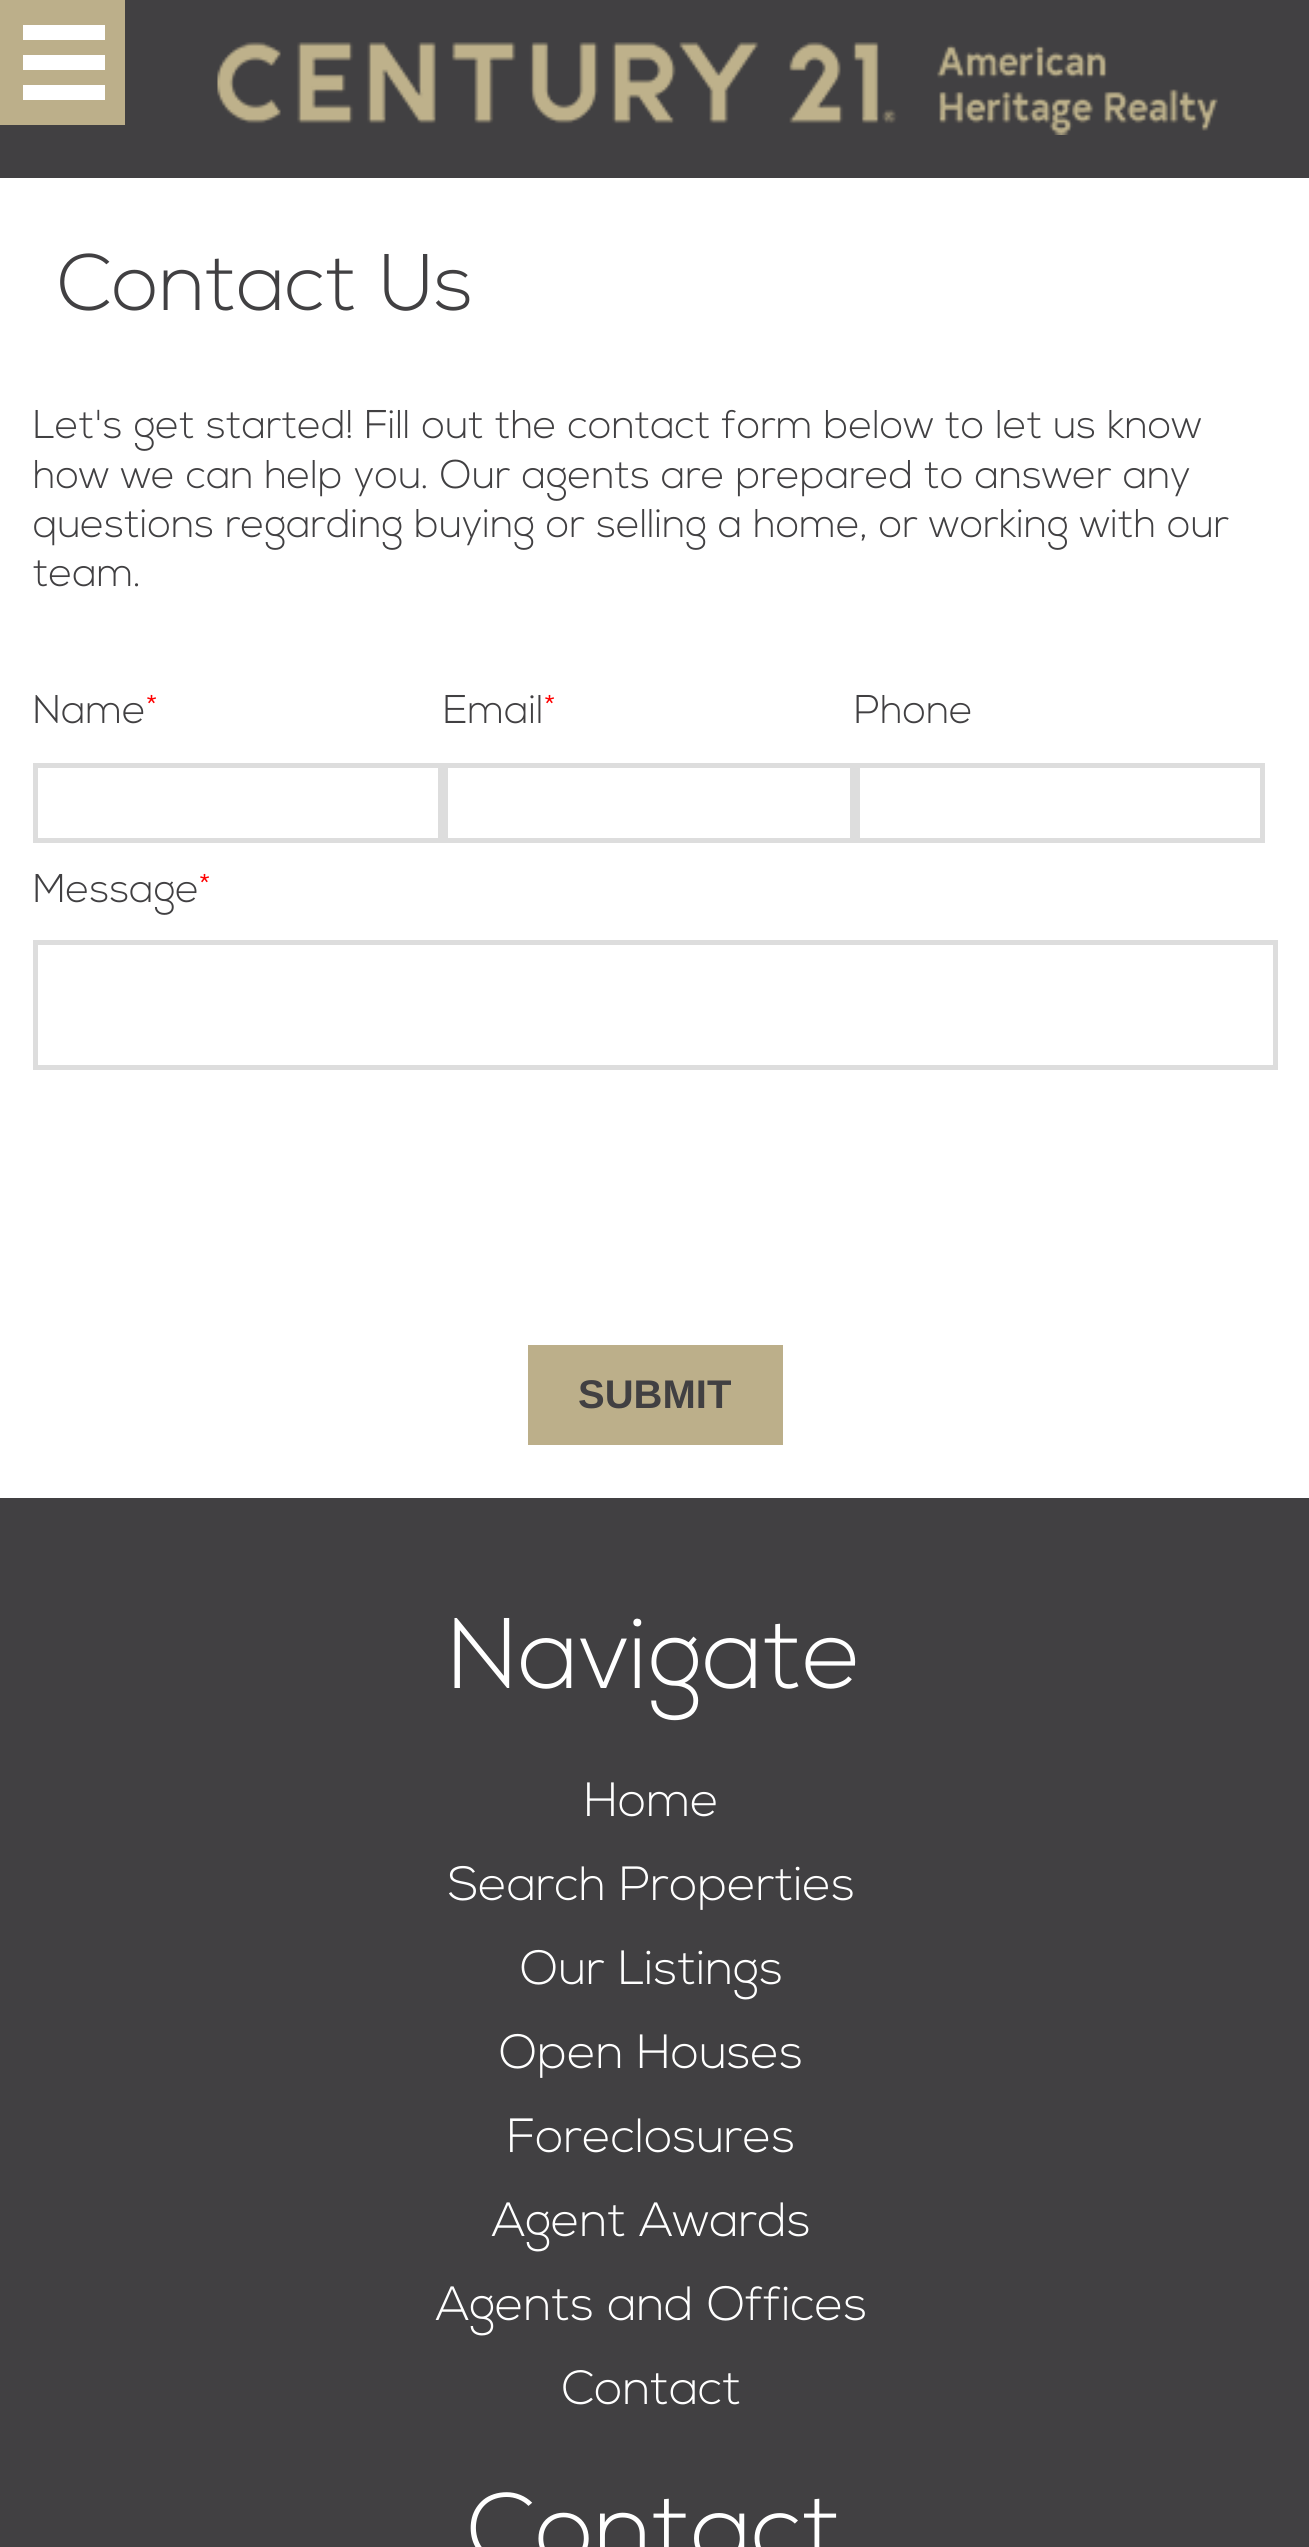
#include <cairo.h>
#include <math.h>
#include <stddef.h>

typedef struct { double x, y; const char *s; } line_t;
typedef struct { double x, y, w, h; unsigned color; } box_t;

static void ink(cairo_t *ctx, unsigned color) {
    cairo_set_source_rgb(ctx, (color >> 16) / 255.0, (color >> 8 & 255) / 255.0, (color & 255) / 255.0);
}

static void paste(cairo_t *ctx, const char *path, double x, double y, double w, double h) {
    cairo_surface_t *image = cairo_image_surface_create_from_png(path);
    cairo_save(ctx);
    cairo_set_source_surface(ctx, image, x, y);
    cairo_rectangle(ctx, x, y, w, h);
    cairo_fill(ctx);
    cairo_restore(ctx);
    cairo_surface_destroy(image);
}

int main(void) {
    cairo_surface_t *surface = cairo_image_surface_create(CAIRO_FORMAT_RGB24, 1309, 2547);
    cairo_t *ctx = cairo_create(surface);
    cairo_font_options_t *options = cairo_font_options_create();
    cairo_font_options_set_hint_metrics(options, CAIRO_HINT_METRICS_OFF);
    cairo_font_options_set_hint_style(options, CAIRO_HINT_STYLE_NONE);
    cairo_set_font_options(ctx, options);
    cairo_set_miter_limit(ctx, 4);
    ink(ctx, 0xFFFFFF);
    cairo_paint(ctx);
    {
        static const box_t items[] = {
            {0, 0, 1309, 178, 0x414042},
            {0, 0, 125, 125, 0xBCAF8A},
            {23, 25, 82, 15, 0xFFFFFF},
            {23, 55, 82, 15, 0xFFFFFF},
            {23, 85, 82, 15, 0xFFFFFF},
        };
        for (size_t i = 0; i < sizeof items / sizeof *items; i++) {
            ink(ctx, items[i].color);
            cairo_rectangle(ctx, items[i].x, items[i].y, items[i].w, items[i].h);
            cairo_fill(ctx);
        }
    }
    paste(ctx, "media/1.png", 217, 42, 1001, 93);
    cairo_select_font_face(ctx, "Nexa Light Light", CAIRO_FONT_SLANT_NORMAL, CAIRO_FONT_WEIGHT_NORMAL);
    cairo_set_font_size(ctx, 80);
    ink(ctx, 0x414042);
    cairo_move_to(ctx, 58, 310);
    cairo_show_text(ctx, "Contact Us");
    cairo_set_font_size(ctx, 40);
    {
        static const line_t items[] = {
            {33, 438, "Let's get started! Fill out the contact form below to let us know"},
            {33, 488, "how we can help you. Our agents are prepared to answer any"},
            {33, 537, "questions regarding buying or selling a home, or working with our"},
            {33, 586, "team."},
            {33, 723, "Name"},
        };
        for (size_t i = 0; i < sizeof items / sizeof *items; i++) {
            cairo_move_to(ctx, items[i].x, items[i].y);
            cairo_show_text(ctx, items[i].s);
        }
    }
    ink(ctx, 0xFF0000);
    cairo_move_to(ctx, 146, 723);
    cairo_show_text(ctx, "*");
    cairo_rectangle(ctx, 35.5, 765.5, 405, 75);
    ink(ctx, 0xDDDDDD);
    cairo_set_line_width(ctx, 5);
    cairo_stroke(ctx);
    ink(ctx, 0x414042);
    cairo_move_to(ctx, 443, 723);
    cairo_show_text(ctx, "Email");
    ink(ctx, 0xFF0000);
    cairo_move_to(ctx, 544, 723);
    cairo_show_text(ctx, "*");
    cairo_rectangle(ctx, 445.5, 765.5, 407, 75);
    ink(ctx, 0xDDDDDD);
    cairo_stroke(ctx);
    ink(ctx, 0x414042);
    cairo_move_to(ctx, 854, 723);
    cairo_show_text(ctx, "Phone");
    cairo_rectangle(ctx, 857.5, 765.5, 405, 75);
    ink(ctx, 0xDDDDDD);
    cairo_stroke(ctx);
    ink(ctx, 0x414042);
    cairo_move_to(ctx, 33, 902);
    cairo_show_text(ctx, "Message");
    ink(ctx, 0xFF0000);
    cairo_move_to(ctx, 199, 902);
    cairo_show_text(ctx, "*");
    cairo_rectangle(ctx, 35.5, 942.5, 1240, 125);
    ink(ctx, 0xDDDDDD);
    cairo_stroke(ctx);
    ink(ctx, 0xBCAF8A);
    cairo_rectangle(ctx, 528, 1345, 255, 100);
    cairo_fill(ctx);
    cairo_select_font_face(ctx, "Liberation Sans", CAIRO_FONT_SLANT_NORMAL, CAIRO_FONT_WEIGHT_BOLD);
    ink(ctx, 0x414042);
    cairo_move_to(ctx, 578, 1408);
    cairo_show_text(ctx, "SUBMIT");
    cairo_rectangle(ctx, 0, 1498, 1309, 1049);
    cairo_fill(ctx);
    cairo_select_font_face(ctx, "Nexa Light Light", CAIRO_FONT_SLANT_NORMAL, CAIRO_FONT_WEIGHT_NORMAL);
    cairo_set_font_size(ctx, 100);
    ink(ctx, 0xFFFFFF);
    cairo_move_to(ctx, 448, 1688);
    cairo_show_text(ctx, "Navigate");
    cairo_set_font_size(ctx, 48);
    {
        static const line_t items[] = {
            {584, 1816, "Home"},
            {448, 1900, "Search Properties"},
            {520, 1984, "Our Listings"},
            {499, 2068, "Open Houses"},
            {507, 2152, "Foreclosures"},
            {492, 2236, "Agent Awards"},
            {436, 2320, "Agents and Offices"},
            {562, 2404, "Contact"},
        };
        for (size_t i = 0; i < sizeof items / sizeof *items; i++) {
            cairo_move_to(ctx, items[i].x, items[i].y);
            cairo_show_text(ctx, items[i].s);
        }
    }
    cairo_set_font_size(ctx, 100);
    cairo_move_to(ctx, 468, 2563);
    cairo_show_text(ctx, "Contact");
    cairo_surface_write_to_png(surface, "image.png");
    cairo_font_options_destroy(options);
    cairo_destroy(ctx);
    cairo_surface_destroy(surface);
    return 0;
}
